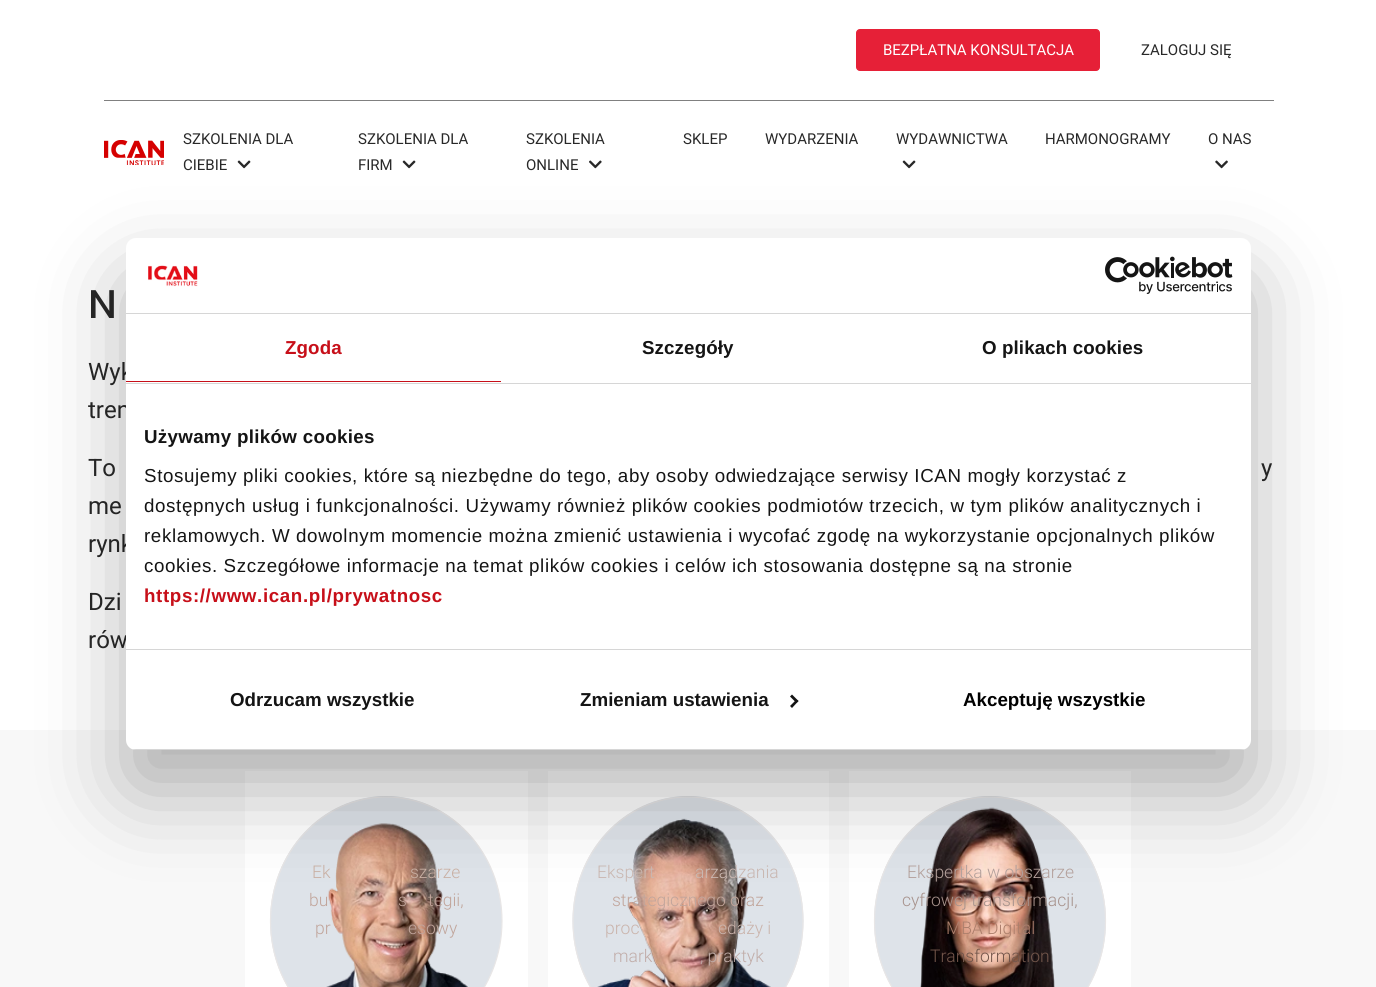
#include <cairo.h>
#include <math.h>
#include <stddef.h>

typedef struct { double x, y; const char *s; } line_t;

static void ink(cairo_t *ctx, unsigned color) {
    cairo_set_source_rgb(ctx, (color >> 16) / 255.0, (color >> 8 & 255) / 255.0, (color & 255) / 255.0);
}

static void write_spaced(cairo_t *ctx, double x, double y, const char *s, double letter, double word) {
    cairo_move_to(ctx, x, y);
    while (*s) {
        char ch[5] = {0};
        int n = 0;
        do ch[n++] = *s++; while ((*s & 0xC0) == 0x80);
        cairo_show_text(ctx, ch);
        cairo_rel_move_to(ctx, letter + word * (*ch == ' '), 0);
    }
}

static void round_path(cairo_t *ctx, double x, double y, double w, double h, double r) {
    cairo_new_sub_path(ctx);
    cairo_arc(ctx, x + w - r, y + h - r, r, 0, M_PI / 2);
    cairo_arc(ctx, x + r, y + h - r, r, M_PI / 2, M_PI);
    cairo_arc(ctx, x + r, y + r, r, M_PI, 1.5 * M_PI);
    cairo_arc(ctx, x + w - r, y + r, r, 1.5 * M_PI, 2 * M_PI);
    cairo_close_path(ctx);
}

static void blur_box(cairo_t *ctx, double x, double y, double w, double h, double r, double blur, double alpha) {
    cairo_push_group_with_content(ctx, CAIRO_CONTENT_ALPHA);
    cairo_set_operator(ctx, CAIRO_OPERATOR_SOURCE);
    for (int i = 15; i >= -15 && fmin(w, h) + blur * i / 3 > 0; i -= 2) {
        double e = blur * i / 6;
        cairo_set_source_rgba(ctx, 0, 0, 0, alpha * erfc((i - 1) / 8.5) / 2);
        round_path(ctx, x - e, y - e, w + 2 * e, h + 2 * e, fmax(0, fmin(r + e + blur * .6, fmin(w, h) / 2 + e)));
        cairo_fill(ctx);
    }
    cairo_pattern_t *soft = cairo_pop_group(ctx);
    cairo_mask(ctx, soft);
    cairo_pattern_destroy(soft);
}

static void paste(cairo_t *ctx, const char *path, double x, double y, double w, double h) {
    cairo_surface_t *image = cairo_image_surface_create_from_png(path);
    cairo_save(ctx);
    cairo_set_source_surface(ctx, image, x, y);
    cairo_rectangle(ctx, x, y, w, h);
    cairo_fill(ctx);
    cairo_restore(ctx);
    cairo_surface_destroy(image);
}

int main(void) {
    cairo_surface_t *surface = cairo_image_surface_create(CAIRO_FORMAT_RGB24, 1376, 987);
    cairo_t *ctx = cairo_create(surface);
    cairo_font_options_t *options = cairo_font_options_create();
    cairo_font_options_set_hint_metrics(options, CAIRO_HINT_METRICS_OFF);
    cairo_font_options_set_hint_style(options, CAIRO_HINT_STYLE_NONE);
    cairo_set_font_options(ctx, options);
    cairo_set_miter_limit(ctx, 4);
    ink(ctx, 0xFFFFFF);
    cairo_paint(ctx);
    ink(ctx, 0x808080);
    cairo_rectangle(ctx, 104, 100, 1170, 1);
    cairo_fill(ctx);
    ink(ctx, 0xE62037);
    round_path(ctx, 856.5, 29.5, 243, 41, 3.5);
    cairo_fill_preserve(ctx);
    cairo_set_line_width(ctx, 1);
    cairo_stroke(ctx);
    cairo_select_font_face(ctx, "Roboto", CAIRO_FONT_SLANT_NORMAL, CAIRO_FONT_WEIGHT_NORMAL);
    cairo_set_font_size(ctx, 15);
    ink(ctx, 0xFFFFFF);
    cairo_move_to(ctx, 883, 55);
    cairo_show_text(ctx, "BEZPŁATNA KONSULTACJA");
    ink(ctx, 0x282828);
    cairo_move_to(ctx, 1141, 55);
    cairo_show_text(ctx, "ZALOGUJ SIĘ");
    paste(ctx, "media/1.png", 104, 140, 60, 25);
    cairo_move_to(ctx, 183, 144);
    cairo_show_text(ctx, "SZKOLENIA DLA");
    cairo_move_to(ctx, 183, 170);
    cairo_show_text(ctx, "CIEBIE");
    paste(ctx, "media/2.png", 237, 160, 14, 9);
    cairo_move_to(ctx, 358, 144);
    cairo_show_text(ctx, "SZKOLENIA DLA");
    cairo_move_to(ctx, 358, 170);
    cairo_show_text(ctx, "FIRM");
    paste(ctx, "media/2.png", 402, 160, 14, 9);
    cairo_move_to(ctx, 526, 144);
    cairo_show_text(ctx, "SZKOLENIA");
    cairo_move_to(ctx, 526, 170);
    cairo_show_text(ctx, "ONLINE");
    paste(ctx, "media/3.png", 589, 160, 13, 9);
    {
        static const line_t items[] = {
            {683, 144, "SKLEP"},
            {765, 144, "WYDARZENIA"},
            {896, 144, "WYDAWNICTWA"},
        };
        for (size_t i = 0; i < sizeof items / sizeof *items; i++) {
            cairo_move_to(ctx, items[i].x, items[i].y);
            cairo_show_text(ctx, items[i].s);
        }
    }
    paste(ctx, "media/2.png", 902, 160, 14, 9);
    cairo_move_to(ctx, 1045, 144);
    cairo_show_text(ctx, "HARMONOGRAMY");
    cairo_move_to(ctx, 1208, 144);
    cairo_show_text(ctx, "O NAS");
    paste(ctx, "media/4.png", 1215, 160, 13, 9);
    cairo_select_font_face(ctx, "Poppins Medium", CAIRO_FONT_SLANT_NORMAL, CAIRO_FONT_WEIGHT_NORMAL);
    cairo_set_font_size(ctx, 40);
    cairo_move_to(ctx, 88, 318);
    cairo_show_text(ctx, "N");
    cairo_select_font_face(ctx, "Roboto", CAIRO_FONT_SLANT_NORMAL, CAIRO_FONT_WEIGHT_NORMAL);
    cairo_set_font_size(ctx, 24);
    {
        static const line_t items[] = {
            {88, 380, "Wyk"},
            {88, 418, "tren"},
            {88, 476, "To"},
            {1261, 476, "y"},
            {88, 514, "me"},
            {88, 552, "rynk"},
            {88, 610, "Dzi"},
            {88, 648, "rów"},
        };
        for (size_t i = 0; i < sizeof items / sizeof *items; i++) {
            cairo_move_to(ctx, items[i].x, items[i].y);
            cairo_show_text(ctx, items[i].s);
        }
    }
    ink(ctx, 0xF8F8F8);
    cairo_rectangle(ctx, 0, 730, 1376, 257);
    cairo_fill(ctx);
    ink(ctx, 0xFFFFFF);
    cairo_rectangle(ctx, 245, 771, 283, 216);
    cairo_fill(ctx);
    ink(ctx, 0xDEE3E9);
    cairo_new_path(ctx);
    cairo_move_to(ctx, 386, 796);
    cairo_curve_to(ctx, 450, 796, 502, 852, 502, 921);
    cairo_curve_to(ctx, 502, 990, 450, 1046, 386, 1046);
    cairo_curve_to(ctx, 322, 1046, 270, 990, 270, 921);
    cairo_curve_to(ctx, 270, 852, 322, 796, 386, 796);
    cairo_close_path(ctx);
    cairo_fill(ctx);
    cairo_new_path(ctx);
    cairo_move_to(ctx, 386, 797);
    cairo_curve_to(ctx, 450, 797, 502, 852.5, 502, 921);
    cairo_curve_to(ctx, 502, 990, 450, 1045.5, 386, 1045.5);
    cairo_curve_to(ctx, 322.5, 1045.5, 270.5, 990, 270.5, 921);
    cairo_curve_to(ctx, 270.5, 852.5, 322.5, 797, 386, 797);
    cairo_close_path(ctx);
    ink(ctx, 0xE8E6E6);
    cairo_set_line_width(ctx, 1.2);
    cairo_stroke(ctx);
    paste(ctx, "media/5.png", 326, 823, 142, 164);
    cairo_select_font_face(ctx, "Roboto Light", CAIRO_FONT_SLANT_NORMAL, CAIRO_FONT_WEIGHT_NORMAL);
    cairo_set_font_size(ctx, 17.5);
    ink(ctx, 0xCAB1A5);
    cairo_move_to(ctx, 312, 878);
    cairo_show_text(ctx, "Ek");
    cairo_move_to(ctx, 410, 878);
    cairo_show_text(ctx, "szarze");
    ink(ctx, 0xC1A59B);
    {
        static const line_t items[] = {
            {309, 906, "bu"},
            {398, 906, "s"},
            {428, 906, "tegii,"},
            {315, 934, "pr"},
            {408, 934, "esowy"},
        };
        for (size_t i = 0; i < sizeof items / sizeof *items; i++) {
            cairo_move_to(ctx, items[i].x, items[i].y);
            cairo_show_text(ctx, items[i].s);
        }
    }
    ink(ctx, 0xFFFFFF);
    cairo_rectangle(ctx, 548, 771, 281, 216);
    cairo_fill(ctx);
    ink(ctx, 0xDEE3E9);
    cairo_new_path(ctx);
    cairo_move_to(ctx, 688, 796);
    cairo_curve_to(ctx, 752, 796, 803.5, 852, 803.5, 921);
    cairo_curve_to(ctx, 803.5, 990, 752, 1046, 688, 1046);
    cairo_curve_to(ctx, 624, 1046, 572.5, 990, 572.5, 921);
    cairo_curve_to(ctx, 572.5, 852, 624, 796, 688, 796);
    cairo_close_path(ctx);
    cairo_fill(ctx);
    cairo_new_path(ctx);
    cairo_move_to(ctx, 688, 797);
    cairo_curve_to(ctx, 751.5, 797, 803, 852.5, 803, 921);
    cairo_curve_to(ctx, 803, 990, 751.5, 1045.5, 688, 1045.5);
    cairo_curve_to(ctx, 624.5, 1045.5, 573, 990, 573, 921);
    cairo_curve_to(ctx, 573, 852.5, 624.5, 797, 688, 797);
    cairo_close_path(ctx);
    ink(ctx, 0xE8E6E6);
    cairo_stroke(ctx);
    paste(ctx, "media/6.png", 597, 818, 174, 169);
    ink(ctx, 0xCAB8B2);
    cairo_move_to(ctx, 597, 878);
    cairo_show_text(ctx, "Ekspert");
    cairo_move_to(ctx, 695, 878);
    cairo_show_text(ctx, "arządzania");
    ink(ctx, 0xC1A59B);
    cairo_move_to(ctx, 612, 906);
    cairo_show_text(ctx, "strategicznego oraz");
    ink(ctx, 0xCAB4AC);
    cairo_move_to(ctx, 605, 934);
    cairo_show_text(ctx, "proc");
    cairo_move_to(ctx, 718, 934);
    cairo_show_text(ctx, "edaży i");
    ink(ctx, 0xC1ADA9);
    cairo_move_to(ctx, 613, 962);
    cairo_show_text(ctx, "mark");
    cairo_move_to(ctx, 700, 962);
    cairo_show_text(ctx, ", praktyk");
    ink(ctx, 0xFFFFFF);
    cairo_rectangle(ctx, 849, 771, 282, 216);
    cairo_fill(ctx);
    ink(ctx, 0xDEE3E9);
    cairo_new_path(ctx);
    cairo_move_to(ctx, 990, 796);
    cairo_curve_to(ctx, 1054, 796, 1106, 852, 1106, 921);
    cairo_curve_to(ctx, 1106, 990, 1054, 1046, 990, 1046);
    cairo_curve_to(ctx, 926, 1046, 874, 990, 874, 921);
    cairo_curve_to(ctx, 874, 852, 926, 796, 990, 796);
    cairo_close_path(ctx);
    cairo_fill(ctx);
    cairo_new_path(ctx);
    cairo_move_to(ctx, 990, 797);
    cairo_curve_to(ctx, 1054, 797, 1105.5, 852.5, 1105.5, 921);
    cairo_curve_to(ctx, 1105.5, 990, 1054, 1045.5, 990, 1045.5);
    cairo_curve_to(ctx, 926, 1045.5, 874.5, 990, 874.5, 921);
    cairo_curve_to(ctx, 874.5, 852.5, 926, 797, 990, 797);
    cairo_close_path(ctx);
    ink(ctx, 0xE8E6E6);
    cairo_stroke(ctx);
    paste(ctx, "media/7.png", 920, 807, 135, 180);
    ink(ctx, 0xB4A19C);
    cairo_move_to(ctx, 907, 878);
    cairo_show_text(ctx, "Ekspertka w obszarze");
    ink(ctx, 0xA7928C);
    cairo_move_to(ctx, 902, 906);
    cairo_show_text(ctx, "cyfrowej transformacji,");
    ink(ctx, 0xAD7F6C);
    cairo_move_to(ctx, 946, 934);
    cairo_show_text(ctx, "MBA Digital");
    ink(ctx, 0x73564B);
    cairo_move_to(ctx, 930, 962);
    cairo_show_text(ctx, "Transformation");
    ink(ctx, 0x000000);
    blur_box(ctx, 126, 278, 1125, 512, 10, 42.5, 0.3);
    ink(ctx, 0xFFFFFF);
    round_path(ctx, 126, 238, 1125, 512, 10);
    cairo_fill(ctx);
    ink(ctx, 0xD6D6D6);
    cairo_rectangle(ctx, 126, 313, 1125, 1);
    cairo_fill(ctx);
    paste(ctx, "media/8.png", 148, 265, 50, 22);
    paste(ctx, "media/9.png", 1105, 256, 128, 38);
    cairo_rectangle(ctx, 126, 383, 1125, 1);
    cairo_fill(ctx);
    ink(ctx, 0xC70F19);
    cairo_rectangle(ctx, 126, 381, 375, 1);
    cairo_fill(ctx);
    cairo_select_font_face(ctx, "Liberation Sans", CAIRO_FONT_SLANT_NORMAL, CAIRO_FONT_WEIGHT_BOLD);
    cairo_set_font_size(ctx, 18.75);
    write_spaced(ctx, 285, 354, "Zgoda", 0.1, 0);
    ink(ctx, 0x141414);
    write_spaced(ctx, 642, 354, "Szczegóły", 0.1, 0);
    write_spaced(ctx, 982, 354, "O plikach cookies", 0.1, 0);
    ink(ctx, 0xD6D6D6);
    cairo_rectangle(ctx, 126, 649, 1125, 1);
    cairo_fill(ctx);
    ink(ctx, 0x141414);
    write_spaced(ctx, 144, 443, "Używamy plików cookies", 0.3, 0);
    cairo_select_font_face(ctx, "Liberation Sans", CAIRO_FONT_SLANT_NORMAL, CAIRO_FONT_WEIGHT_NORMAL);
    {
        static const line_t items[] = {
            {144, 482, "Stosujemy pliki cookies, które są niezbędne do tego, aby osoby odwiedzające serwisy ICAN mogły korzystać z"},
            {144, 512, "dostępnych usług i funkcjonalności. Używamy również plików cookies podmiotów trzecich, w tym plików analitycznych i"},
            {144, 542, "reklamowych. W dowolnym momencie można zmienić ustawienia i wycofać zgodę na wykorzystanie opcjonalnych plików"},
            {144, 572, "cookies. Szczegółowe informacje na temat plików cookies i celów ich stosowania dostępne są na stronie"},
        };
        for (size_t i = 0; i < sizeof items / sizeof *items; i++) {
            write_spaced(ctx, items[i].x, items[i].y, items[i].s, 0.62, 0);
        }
    }
    cairo_select_font_face(ctx, "Liberation Sans", CAIRO_FONT_SLANT_NORMAL, CAIRO_FONT_WEIGHT_BOLD);
    ink(ctx, 0xC70F19);
    write_spaced(ctx, 144, 602, "https://www.ican.pl/prywatnosc", 0.62, 0);
    cairo_save(ctx);
    round_path(ctx, 126, 238, 1125, 512, 10);
    cairo_clip(ctx);
    ink(ctx, 0xD6D6D6);
    cairo_rectangle(ctx, 126, 749, 1125, 1);
    cairo_fill(ctx);
    cairo_restore(ctx);
    ink(ctx, 0x141414);
    cairo_move_to(ctx, 230, 706);
    cairo_show_text(ctx, "Odrzucam wszystkie");
    cairo_move_to(ctx, 580, 706);
    cairo_show_text(ctx, "Zmieniam ustawienia");
    cairo_new_path(ctx);
    cairo_move_to(ctx, 792, 694.5);
    cairo_line_to(ctx, 798.5, 701);
    cairo_line_to(ctx, 796.5, 703);
    cairo_line_to(ctx, 790, 696.5);
    cairo_close_path(ctx);
    cairo_fill(ctx);
    cairo_new_path(ctx);
    cairo_move_to(ctx, 796.5, 699.5);
    cairo_line_to(ctx, 798.5, 701);
    cairo_line_to(ctx, 792, 708);
    cairo_line_to(ctx, 790, 706);
    cairo_close_path(ctx);
    cairo_fill(ctx);
    ink(ctx, 0x000000);
    cairo_move_to(ctx, 963, 706);
    cairo_show_text(ctx, "Akceptuję wszystkie");
    cairo_surface_write_to_png(surface, "image.png");
    cairo_font_options_destroy(options);
    cairo_destroy(ctx);
    cairo_surface_destroy(surface);
    return 0;
}
